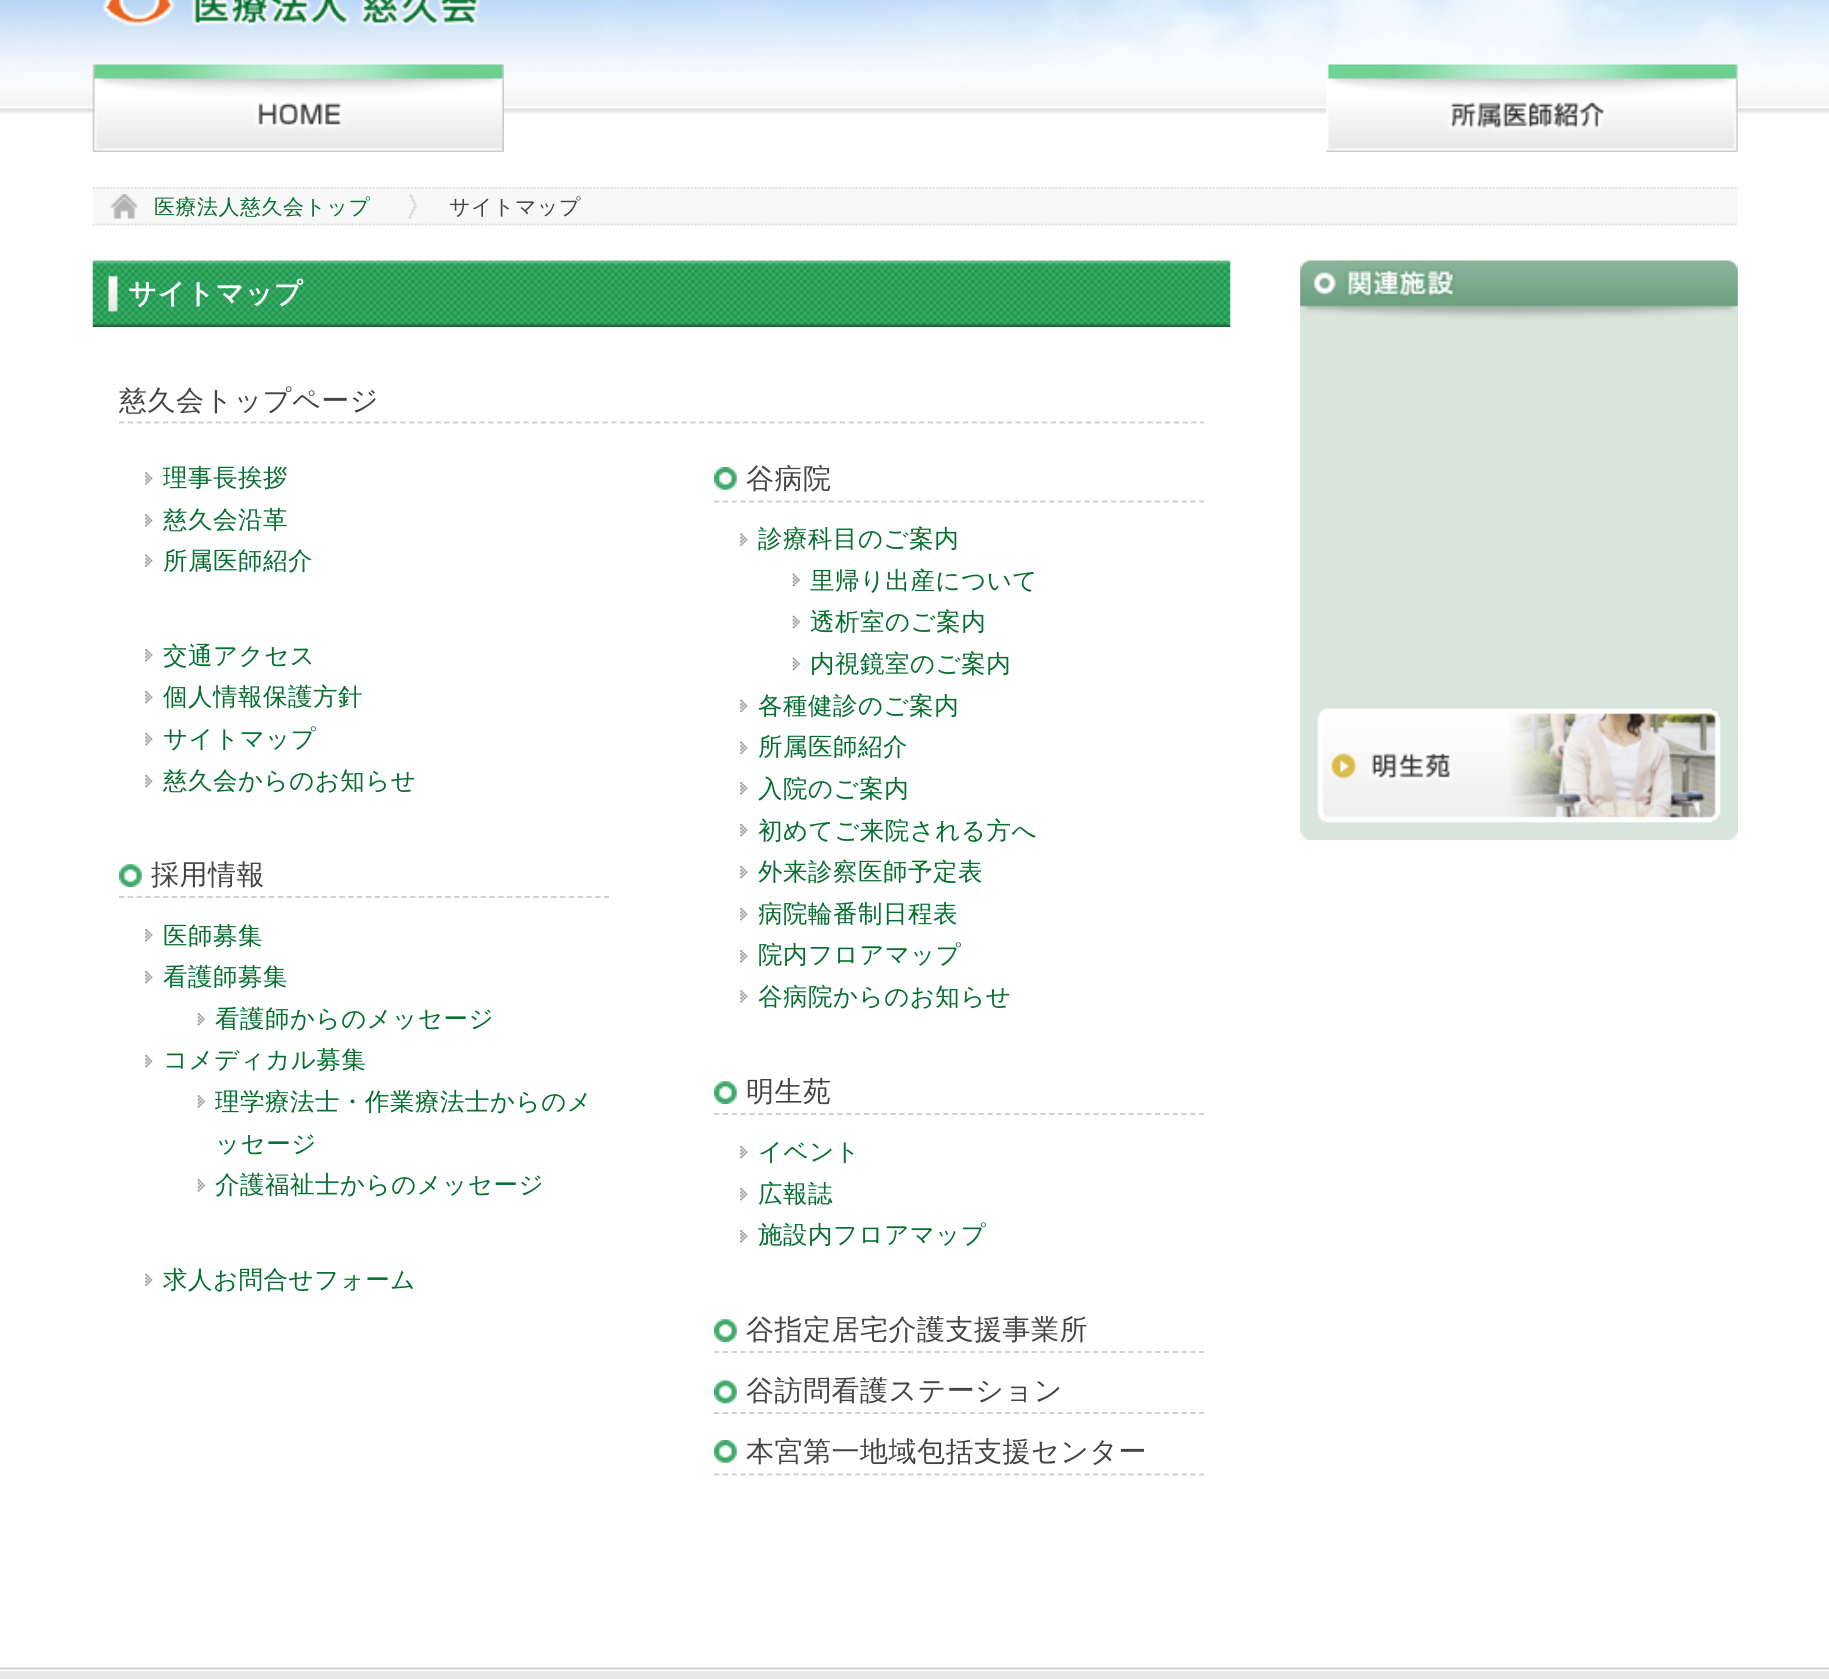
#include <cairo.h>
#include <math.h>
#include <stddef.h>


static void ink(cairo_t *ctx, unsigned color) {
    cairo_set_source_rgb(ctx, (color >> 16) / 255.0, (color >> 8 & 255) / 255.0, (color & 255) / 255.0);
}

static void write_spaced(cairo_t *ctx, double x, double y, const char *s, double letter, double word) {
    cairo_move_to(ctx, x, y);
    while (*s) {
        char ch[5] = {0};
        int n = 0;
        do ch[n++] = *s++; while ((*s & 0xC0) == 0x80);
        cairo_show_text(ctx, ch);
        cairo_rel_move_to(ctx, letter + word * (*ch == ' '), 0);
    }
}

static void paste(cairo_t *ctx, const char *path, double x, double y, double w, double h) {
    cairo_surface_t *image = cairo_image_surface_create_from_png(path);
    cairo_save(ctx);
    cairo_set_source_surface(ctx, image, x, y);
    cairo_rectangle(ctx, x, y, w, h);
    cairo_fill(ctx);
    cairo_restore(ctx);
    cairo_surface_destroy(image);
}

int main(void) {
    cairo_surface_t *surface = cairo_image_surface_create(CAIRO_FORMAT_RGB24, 1829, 1679);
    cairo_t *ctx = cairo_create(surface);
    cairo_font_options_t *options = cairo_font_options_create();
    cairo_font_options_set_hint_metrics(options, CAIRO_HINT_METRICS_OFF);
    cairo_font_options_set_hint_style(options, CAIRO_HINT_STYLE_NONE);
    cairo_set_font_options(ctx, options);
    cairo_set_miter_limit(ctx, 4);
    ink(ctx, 0xFFFFFF);
    cairo_paint(ctx);
    paste(ctx, "media/1.png", 0, 0, 1829, 114);
    paste(ctx, "media/2.png", 102, 0, 378, 27);
    paste(ctx, "media/3.png", 92, 64, 412, 88);
    paste(ctx, "media/4.png", 1326, 64, 412, 88);
    paste(ctx, "media/5.png", 92, 187, 1646, 39);
    paste(ctx, "media/6.png", 110, 194, 29, 25);
    cairo_select_font_face(ctx, "WenQuanYi Zen Hei Medium", CAIRO_FONT_SLANT_NORMAL, CAIRO_FONT_WEIGHT_NORMAL);
    cairo_set_font_size(ctx, 21);
    ink(ctx, 0x036F2E);
    write_spaced(ctx, 154, 214, "医療法人慈久会トップ", 0.5, 0);
    paste(ctx, "media/7.png", 407, 194, 10, 25);
    ink(ctx, 0x444444);
    write_spaced(ctx, 449, 214, "サイトマップ", 0.5, 0);
    paste(ctx, "media/8.png", 92, 260, 1139, 67);
    cairo_select_font_face(ctx, "WenQuanYi Zen Hei", CAIRO_FONT_SLANT_NORMAL, CAIRO_FONT_WEIGHT_BOLD);
    cairo_set_font_size(ctx, 28);
    ink(ctx, 0xFFFFFF);
    write_spaced(ctx, 128, 303, "サイトマップ", 0.5, 0);
    cairo_new_path(ctx);
    cairo_move_to(ctx, 119, 422.5);
    cairo_line_to(ctx, 1204, 422.5);
    ink(ctx, 0xCCCCCC);
    cairo_set_line_width(ctx, 1.8);
    cairo_set_dash(ctx, (double[]){5.25, 3.54}, 2, 0);
    cairo_stroke(ctx);
    cairo_select_font_face(ctx, "WenQuanYi Zen Hei Medium", CAIRO_FONT_SLANT_NORMAL, CAIRO_FONT_WEIGHT_NORMAL);
    ink(ctx, 0x444444);
    write_spaced(ctx, 119, 410, "慈久会トップページ", 0.5, 0);
    paste(ctx, "media/9.png", 145, 472, 8, 13);
    cairo_set_font_size(ctx, 24.5);
    ink(ctx, 0x036F2E);
    write_spaced(ctx, 163, 486, "理事長挨拶", 0.5, 0);
    paste(ctx, "media/9.png", 145, 514, 8, 13);
    write_spaced(ctx, 163, 528, "慈久会沿革", 0.5, 0);
    paste(ctx, "media/10.png", 145, 554, 8, 13);
    write_spaced(ctx, 163, 569, "所属医師紹介", 0.5, 0);
    paste(ctx, "media/11.png", 145, 649, 8, 13);
    write_spaced(ctx, 163, 664, "交通アクセス", 0.5, 0);
    paste(ctx, "media/11.png", 145, 691, 8, 13);
    write_spaced(ctx, 163, 705, "個人情報保護方針", 0.5, 0);
    paste(ctx, "media/11.png", 145, 733, 8, 13);
    write_spaced(ctx, 163, 747, "サイトマップ", 0.5, 0);
    paste(ctx, "media/11.png", 145, 775, 8, 13);
    write_spaced(ctx, 163, 789, "慈久会からのお知らせ", 0.5, 0);
    paste(ctx, "media/12.png", 119, 864, 23, 23);
    cairo_new_path(ctx);
    cairo_move_to(ctx, 119, 897);
    cairo_line_to(ctx, 609, 897);
    ink(ctx, 0xCCCCCC);
    cairo_set_dash(ctx, (double[]){5.25, 3.57}, 2, 0);
    cairo_stroke(ctx);
    cairo_set_font_size(ctx, 28);
    ink(ctx, 0x444444);
    write_spaced(ctx, 151, 884, "採用情報", 0.5, 0);
    paste(ctx, "media/11.png", 145, 929, 8, 13);
    cairo_set_font_size(ctx, 24.5);
    ink(ctx, 0x036F2E);
    write_spaced(ctx, 163, 944, "医師募集", 0.5, 0);
    paste(ctx, "media/11.png", 145, 971, 8, 13);
    write_spaced(ctx, 163, 985, "看護師募集", 0.5, 0);
    paste(ctx, "media/13.png", 197, 1013, 8, 13);
    write_spaced(ctx, 215, 1027, "看護師からのメッセージ", 0.5, 0);
    paste(ctx, "media/11.png", 145, 1055, 8, 13);
    write_spaced(ctx, 163, 1068, "コメディカル募集", 0.5, 0);
    paste(ctx, "media/14.png", 197, 1095, 8, 13);
    write_spaced(ctx, 215, 1110, "理学療法士・作業療法士からのメ", 0.5, 0);
    write_spaced(ctx, 215, 1152, "ッセージ", 0.5, 0);
    paste(ctx, "media/14.png", 197, 1179, 8, 13);
    write_spaced(ctx, 215, 1193, "介護福祉士からのメッセージ", 0.5, 0);
    paste(ctx, "media/15.png", 145, 1273, 8, 13);
    write_spaced(ctx, 163, 1288, "求人お問合せフォーム", 0.5, 0);
    paste(ctx, "media/16.png", 714, 467, 23, 23);
    cairo_new_path(ctx);
    cairo_move_to(ctx, 714, 501.5);
    cairo_line_to(ctx, 1204, 501.5);
    ink(ctx, 0xCCCCCC);
    cairo_stroke(ctx);
    cairo_set_font_size(ctx, 28);
    ink(ctx, 0x444444);
    write_spaced(ctx, 746, 488, "谷病院", 0.5, 0);
    paste(ctx, "media/17.png", 740, 533, 8, 13);
    cairo_set_font_size(ctx, 24.5);
    ink(ctx, 0x036F2E);
    write_spaced(ctx, 758, 547, "診療科目のご案内", 0.5, 0);
    paste(ctx, "media/18.png", 792, 573, 8, 13);
    write_spaced(ctx, 810, 589, "里帰り出産について", 0.5, 0);
    paste(ctx, "media/18.png", 792, 615, 8, 13);
    write_spaced(ctx, 810, 630, "透析室のご案内", 0.5, 0);
    paste(ctx, "media/18.png", 792, 657, 8, 13);
    write_spaced(ctx, 810, 672, "内視鏡室のご案内", 0.5, 0);
    paste(ctx, "media/19.png", 740, 699, 8, 13);
    write_spaced(ctx, 758, 714, "各種健診のご案内", 0.5, 0);
    paste(ctx, "media/19.png", 740, 741, 8, 13);
    write_spaced(ctx, 758, 755, "所属医師紹介", 0.5, 0);
    paste(ctx, "media/20.png", 740, 782, 8, 13);
    write_spaced(ctx, 758, 797, "入院のご案内", 0.5, 0);
    paste(ctx, "media/20.png", 740, 824, 8, 13);
    write_spaced(ctx, 758, 839, "初めてご来院される方へ", 0.5, 0);
    paste(ctx, "media/20.png", 740, 866, 8, 13);
    write_spaced(ctx, 758, 880, "外来診察医師予定表", 0.5, 0);
    paste(ctx, "media/20.png", 740, 908, 8, 13);
    write_spaced(ctx, 758, 922, "病院輪番制日程表", 0.5, 0);
    paste(ctx, "media/20.png", 740, 950, 8, 13);
    write_spaced(ctx, 758, 963, "院内フロアマップ", 0.5, 0);
    paste(ctx, "media/21.png", 740, 990, 8, 13);
    write_spaced(ctx, 758, 1005, "谷病院からのお知らせ", 0.5, 0);
    paste(ctx, "media/22.png", 714, 1081, 23, 23);
    cairo_new_path(ctx);
    cairo_move_to(ctx, 714, 1114);
    cairo_line_to(ctx, 1204, 1114);
    ink(ctx, 0xCCCCCC);
    cairo_stroke(ctx);
    cairo_set_font_size(ctx, 28);
    ink(ctx, 0x444444);
    write_spaced(ctx, 746, 1101, "明生苑", 0.5, 0);
    paste(ctx, "media/20.png", 740, 1146, 8, 13);
    cairo_set_font_size(ctx, 24.5);
    ink(ctx, 0x036F2E);
    write_spaced(ctx, 758, 1160, "イベント", 0.5, 0);
    paste(ctx, "media/20.png", 740, 1188, 8, 13);
    write_spaced(ctx, 758, 1202, "広報誌", 0.5, 0);
    paste(ctx, "media/20.png", 740, 1230, 8, 13);
    write_spaced(ctx, 758, 1243, "施設内フロアマップ", 0.5, 0);
    paste(ctx, "media/22.png", 714, 1319, 23, 23);
    cairo_new_path(ctx);
    cairo_move_to(ctx, 714, 1352);
    cairo_line_to(ctx, 1204, 1352);
    ink(ctx, 0xCCCCCC);
    cairo_stroke(ctx);
    cairo_set_font_size(ctx, 28);
    ink(ctx, 0x444444);
    write_spaced(ctx, 746, 1339, "谷指定居宅介護支援事業所", 0.5, 0);
    paste(ctx, "media/23.png", 714, 1380, 23, 24);
    cairo_new_path(ctx);
    cairo_move_to(ctx, 714, 1413);
    cairo_line_to(ctx, 1204, 1413);
    ink(ctx, 0xCCCCCC);
    cairo_stroke(ctx);
    ink(ctx, 0x444444);
    write_spaced(ctx, 746, 1400, "谷訪問看護ステーション", 0.5, 0);
    paste(ctx, "media/16.png", 714, 1440, 23, 23);
    cairo_new_path(ctx);
    cairo_move_to(ctx, 714, 1474.5);
    cairo_line_to(ctx, 1204, 1474.5);
    ink(ctx, 0xCCCCCC);
    cairo_stroke(ctx);
    ink(ctx, 0x444444);
    write_spaced(ctx, 746, 1461, "本宮第一地域包括支援センター", 0.5, 0);
    ink(ctx, 0xD8E5DD);
    cairo_rectangle(ctx, 1300, 261, 438, 579);
    cairo_fill(ctx);
    paste(ctx, "media/24.png", 1300, 260, 438, 60);
    paste(ctx, "media/25.png", 1300, 831, 438, 9);
    paste(ctx, "media/26.png", 1317, 708, 404, 115);
    paste(ctx, "media/27.png", 0, 1667, 1829, 12);
    cairo_surface_write_to_png(surface, "image.png");
    cairo_font_options_destroy(options);
    cairo_destroy(ctx);
    cairo_surface_destroy(surface);
    return 0;
}
